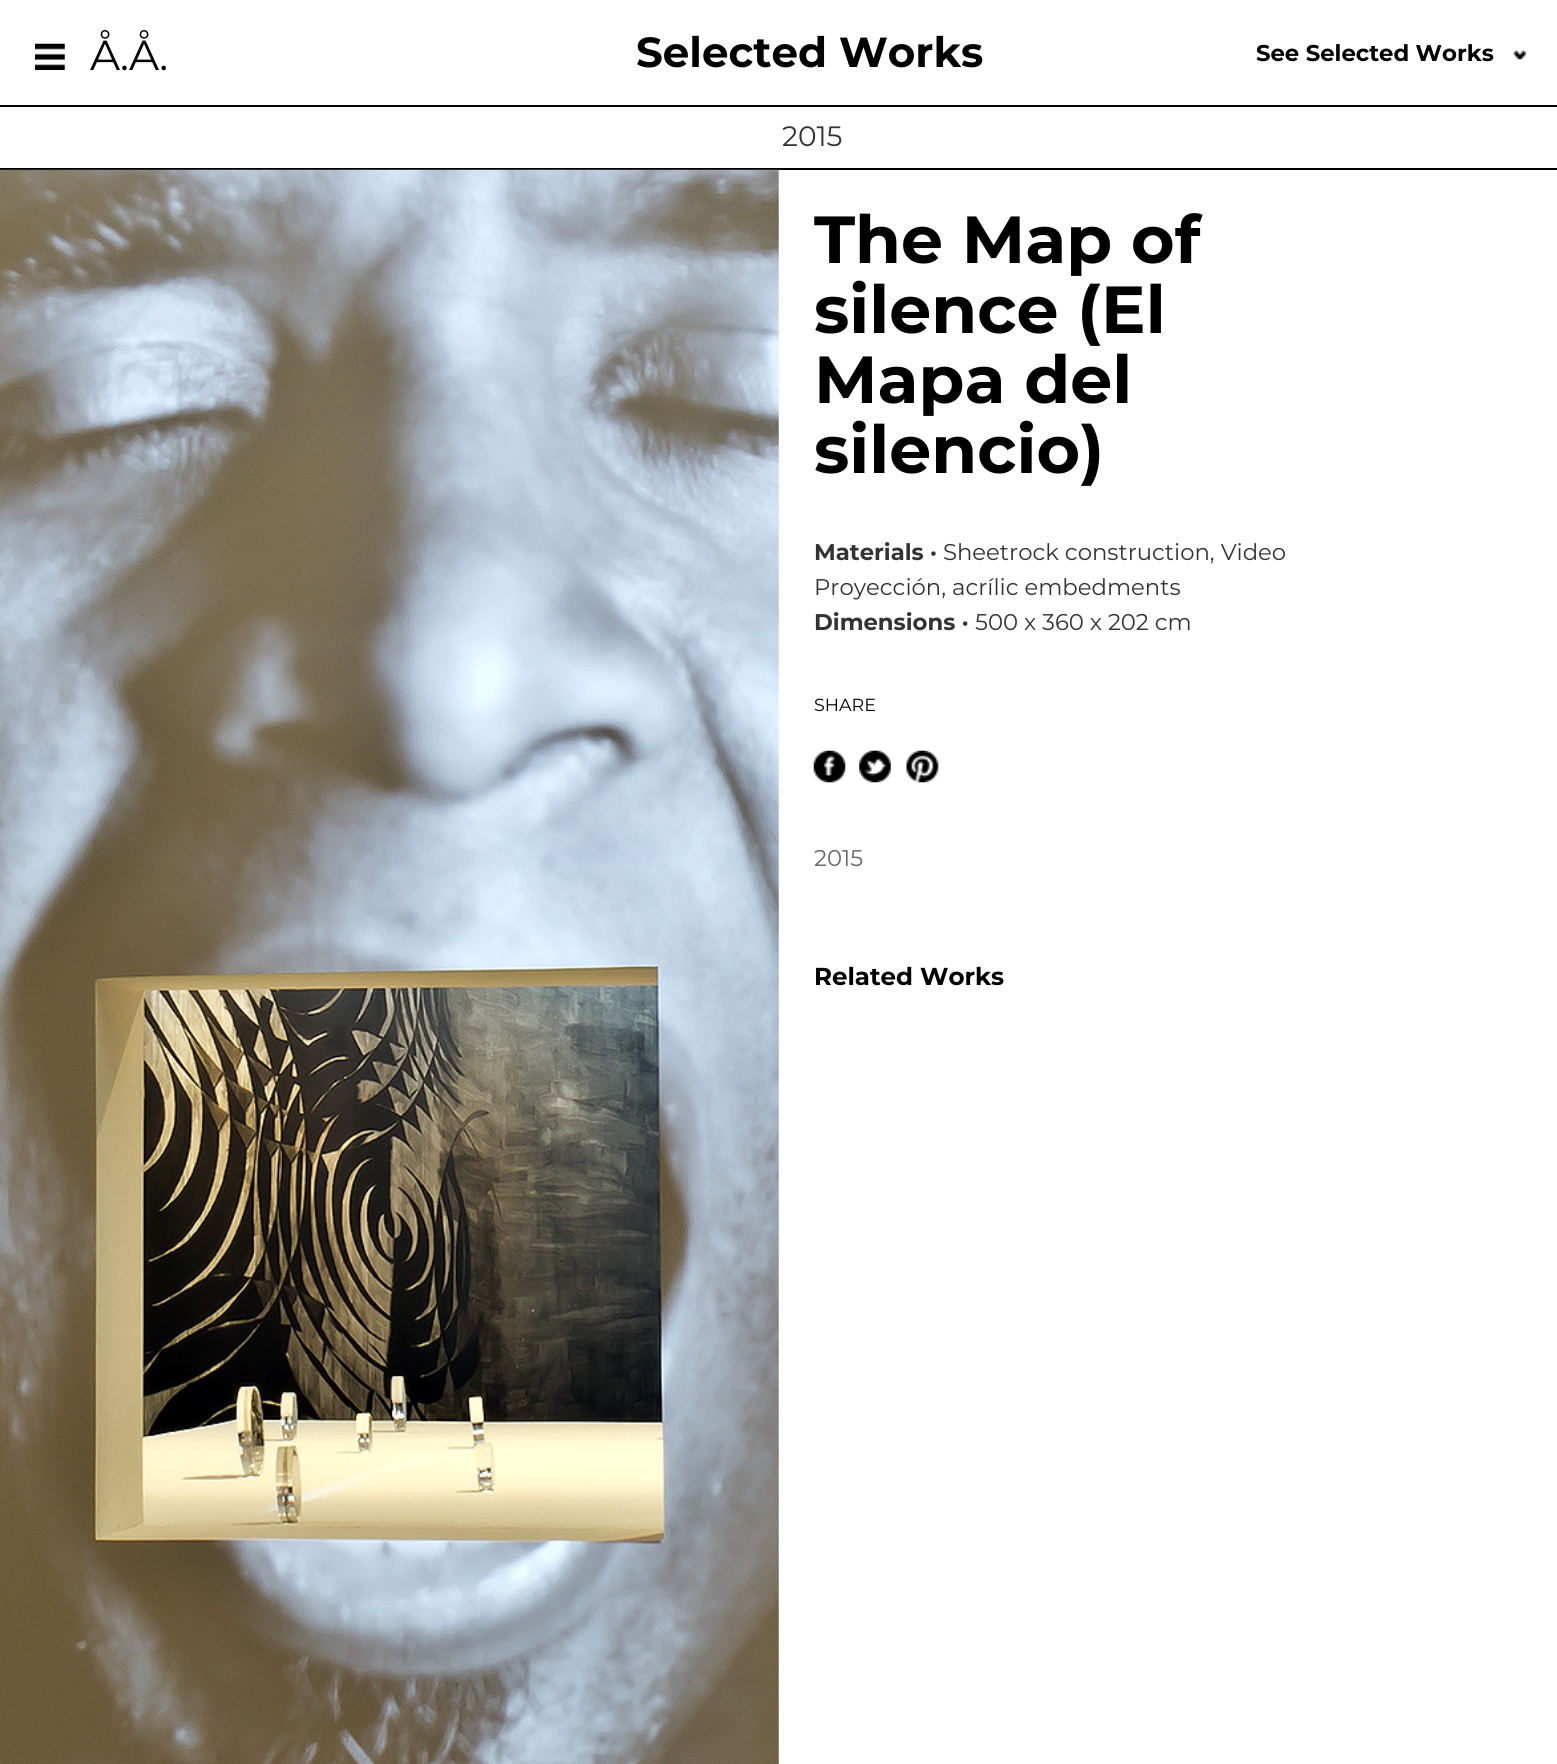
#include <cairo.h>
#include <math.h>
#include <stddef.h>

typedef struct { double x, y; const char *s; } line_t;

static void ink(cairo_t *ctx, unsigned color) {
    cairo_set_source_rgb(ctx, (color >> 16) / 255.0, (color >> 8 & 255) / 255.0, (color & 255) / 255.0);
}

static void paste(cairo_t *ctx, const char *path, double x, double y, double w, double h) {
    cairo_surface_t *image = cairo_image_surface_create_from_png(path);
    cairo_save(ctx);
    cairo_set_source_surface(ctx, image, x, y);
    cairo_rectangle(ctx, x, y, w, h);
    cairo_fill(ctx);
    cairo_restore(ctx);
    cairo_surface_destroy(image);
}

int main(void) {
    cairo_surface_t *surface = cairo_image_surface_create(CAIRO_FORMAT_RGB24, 1557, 1764);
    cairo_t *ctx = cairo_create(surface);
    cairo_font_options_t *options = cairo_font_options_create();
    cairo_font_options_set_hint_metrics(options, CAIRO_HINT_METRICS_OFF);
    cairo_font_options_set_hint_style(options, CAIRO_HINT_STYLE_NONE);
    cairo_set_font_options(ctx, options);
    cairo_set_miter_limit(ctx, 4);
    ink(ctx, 0xFFFFFF);
    cairo_paint(ctx);
    ink(ctx, 0x000000);
    cairo_rectangle(ctx, 0, 105, 1557, 2);
    cairo_fill(ctx);
    paste(ctx, "media/1.png", 35, 43, 30, 27);
    cairo_select_font_face(ctx, "Montserrat", CAIRO_FONT_SLANT_NORMAL, CAIRO_FONT_WEIGHT_NORMAL);
    cairo_set_font_size(ctx, 42);
    cairo_move_to(ctx, 90, 70);
    cairo_show_text(ctx, "Å.Å.");
    cairo_select_font_face(ctx, "Montserrat", CAIRO_FONT_SLANT_NORMAL, CAIRO_FONT_WEIGHT_BOLD);
    cairo_move_to(ctx, 636, 67);
    cairo_show_text(ctx, "Selected Works");
    cairo_set_font_size(ctx, 22.75);
    cairo_move_to(ctx, 1256, 61);
    cairo_show_text(ctx, "See Selected Works");
    paste(ctx, "media/2.png", 1513, 50, 13, 10);
    cairo_rectangle(ctx, 0, 168, 1557, 2);
    cairo_fill(ctx);
    cairo_select_font_face(ctx, "Montserrat", CAIRO_FONT_SLANT_NORMAL, CAIRO_FONT_WEIGHT_NORMAL);
    cairo_set_font_size(ctx, 28);
    ink(ctx, 0x333333);
    cairo_move_to(ctx, 782, 146);
    cairo_show_text(ctx, "2015");
    paste(ctx, "media/3.png", 0, 169, 779, 1595);
    cairo_select_font_face(ctx, "Montserrat", CAIRO_FONT_SLANT_NORMAL, CAIRO_FONT_WEIGHT_BOLD);
    cairo_set_font_size(ctx, 66.5);
    ink(ctx, 0x000000);
    {
        static const line_t items[] = {
            {814, 263, "The Map of"},
            {814, 333, "silence (El"},
            {814, 403, "Mapa del"},
            {814, 473, "silencio)"},
        };
        for (size_t i = 0; i < sizeof items / sizeof *items; i++) {
            cairo_move_to(ctx, items[i].x, items[i].y);
            cairo_show_text(ctx, items[i].s);
        }
    }
    cairo_set_font_size(ctx, 22.75);
    ink(ctx, 0x333333);
    cairo_move_to(ctx, 814, 560);
    cairo_show_text(ctx, "Materials ·");
    cairo_select_font_face(ctx, "Montserrat", CAIRO_FONT_SLANT_NORMAL, CAIRO_FONT_WEIGHT_NORMAL);
    cairo_move_to(ctx, 943, 560);
    cairo_show_text(ctx, "Sheetrock construction, Video");
    cairo_move_to(ctx, 814, 595);
    cairo_show_text(ctx, "Proyección, acrílic embedments");
    cairo_select_font_face(ctx, "Montserrat", CAIRO_FONT_SLANT_NORMAL, CAIRO_FONT_WEIGHT_BOLD);
    cairo_move_to(ctx, 814, 630);
    cairo_show_text(ctx, "Dimensions ·");
    cairo_select_font_face(ctx, "Montserrat", CAIRO_FONT_SLANT_NORMAL, CAIRO_FONT_WEIGHT_NORMAL);
    cairo_move_to(ctx, 975, 630);
    cairo_show_text(ctx, "500 x 360 x 202 cm");
    cairo_set_font_size(ctx, 17.5);
    ink(ctx, 0x000000);
    cairo_move_to(ctx, 814, 711);
    cairo_show_text(ctx, "SHARE");
    paste(ctx, "media/4.png", 813, 750, 33, 33);
    paste(ctx, "media/5.png", 859, 750, 32, 33);
    paste(ctx, "media/6.png", 906, 750, 33, 33);
    cairo_set_font_size(ctx, 22.75);
    ink(ctx, 0x666666);
    cairo_move_to(ctx, 814, 866);
    cairo_show_text(ctx, "2015");
    cairo_select_font_face(ctx, "Montserrat", CAIRO_FONT_SLANT_NORMAL, CAIRO_FONT_WEIGHT_BOLD);
    cairo_set_font_size(ctx, 24.5);
    ink(ctx, 0x000000);
    cairo_move_to(ctx, 814, 985);
    cairo_show_text(ctx, "Related Works");
    cairo_surface_write_to_png(surface, "image.png");
    cairo_font_options_destroy(options);
    cairo_destroy(ctx);
    cairo_surface_destroy(surface);
    return 0;
}
